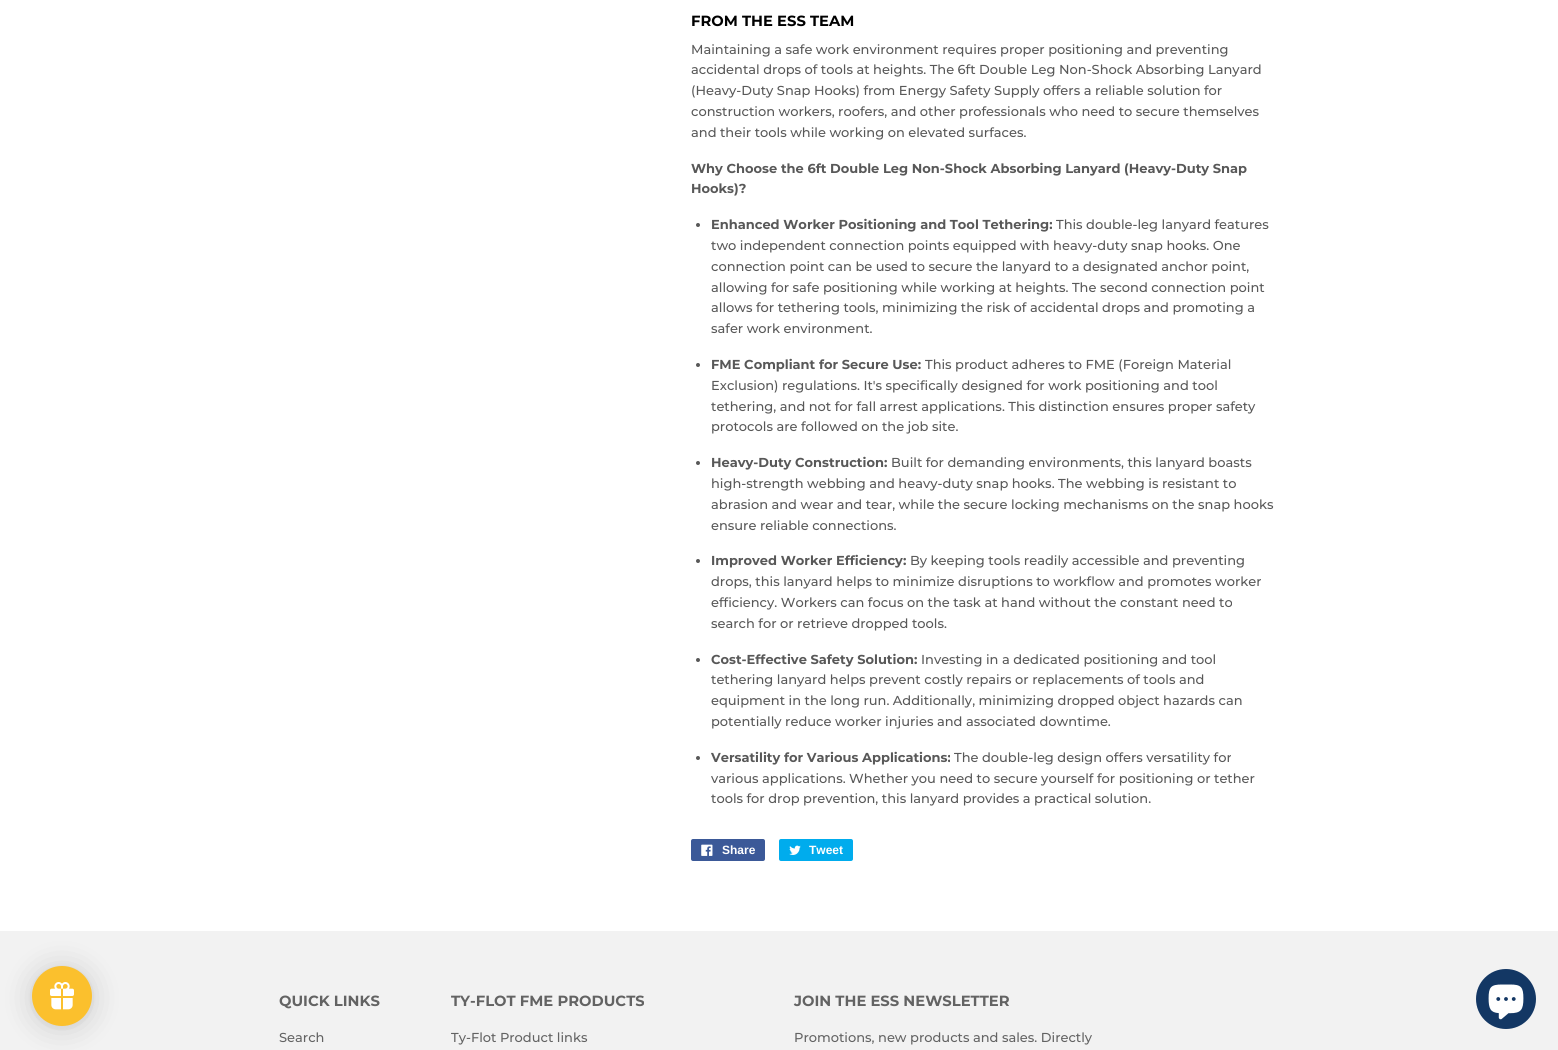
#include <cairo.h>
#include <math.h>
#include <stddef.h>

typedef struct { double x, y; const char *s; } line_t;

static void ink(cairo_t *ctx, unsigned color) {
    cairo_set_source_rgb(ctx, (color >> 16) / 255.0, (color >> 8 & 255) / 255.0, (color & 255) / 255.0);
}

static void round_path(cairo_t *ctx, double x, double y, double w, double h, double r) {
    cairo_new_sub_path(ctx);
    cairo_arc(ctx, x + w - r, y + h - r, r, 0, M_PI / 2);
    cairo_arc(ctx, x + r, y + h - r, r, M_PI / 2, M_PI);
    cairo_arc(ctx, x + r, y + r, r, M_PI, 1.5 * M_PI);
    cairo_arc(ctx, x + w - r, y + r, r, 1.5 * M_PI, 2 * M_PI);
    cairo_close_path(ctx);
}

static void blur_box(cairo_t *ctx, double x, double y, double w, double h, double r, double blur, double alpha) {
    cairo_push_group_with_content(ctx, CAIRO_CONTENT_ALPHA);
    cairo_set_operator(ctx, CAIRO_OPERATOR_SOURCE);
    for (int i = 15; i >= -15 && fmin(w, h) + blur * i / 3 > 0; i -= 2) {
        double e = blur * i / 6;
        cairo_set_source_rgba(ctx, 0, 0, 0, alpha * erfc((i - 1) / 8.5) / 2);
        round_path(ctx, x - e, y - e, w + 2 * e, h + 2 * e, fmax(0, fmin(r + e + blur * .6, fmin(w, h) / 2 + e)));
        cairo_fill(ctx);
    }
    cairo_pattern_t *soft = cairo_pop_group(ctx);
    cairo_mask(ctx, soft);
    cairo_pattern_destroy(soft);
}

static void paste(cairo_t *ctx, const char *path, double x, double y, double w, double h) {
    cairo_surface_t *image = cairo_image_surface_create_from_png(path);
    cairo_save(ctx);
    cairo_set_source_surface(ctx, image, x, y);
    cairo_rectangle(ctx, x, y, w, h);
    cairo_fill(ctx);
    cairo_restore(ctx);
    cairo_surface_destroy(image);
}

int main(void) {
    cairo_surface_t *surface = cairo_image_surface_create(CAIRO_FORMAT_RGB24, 1558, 1050);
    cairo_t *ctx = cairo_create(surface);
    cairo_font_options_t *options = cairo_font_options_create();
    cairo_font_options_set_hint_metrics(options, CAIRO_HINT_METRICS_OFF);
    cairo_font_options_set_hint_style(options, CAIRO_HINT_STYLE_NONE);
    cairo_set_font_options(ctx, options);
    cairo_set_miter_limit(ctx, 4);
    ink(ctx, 0xFFFFFF);
    cairo_paint(ctx);
    cairo_select_font_face(ctx, "Montserrat", CAIRO_FONT_SLANT_NORMAL, CAIRO_FONT_WEIGHT_BOLD);
    cairo_set_font_size(ctx, 14.75);
    ink(ctx, 0x000000);
    cairo_move_to(ctx, 691, 26);
    cairo_show_text(ctx, "FROM THE ESS TEAM");
    cairo_select_font_face(ctx, "Montserrat Medium", CAIRO_FONT_SLANT_NORMAL, CAIRO_FONT_WEIGHT_NORMAL);
    cairo_set_font_size(ctx, 13);
    ink(ctx, 0x585858);
    {
        static const line_t items[] = {
            {691, 54, "Maintaining a safe work environment requires proper positioning and preventing"},
            {691, 74, "accidental drops of tools at heights. The 6ft Double Leg Non-Shock Absorbing Lanyard"},
            {691, 95, "(Heavy-Duty Snap Hooks) from Energy Safety Supply offers a reliable solution for"},
            {691, 116, "construction workers, roofers, and other professionals who need to secure themselves"},
            {691, 137, "and their tools while working on elevated surfaces."},
        };
        for (size_t i = 0; i < sizeof items / sizeof *items; i++) {
            cairo_move_to(ctx, items[i].x, items[i].y);
            cairo_show_text(ctx, items[i].s);
        }
    }
    cairo_select_font_face(ctx, "Montserrat", CAIRO_FONT_SLANT_NORMAL, CAIRO_FONT_WEIGHT_BOLD);
    cairo_move_to(ctx, 691, 173);
    cairo_show_text(ctx, "Why Choose the 6ft Double Leg Non-Shock Absorbing Lanyard (Heavy-Duty Snap");
    cairo_move_to(ctx, 691, 193);
    cairo_show_text(ctx, "Hooks)?");
    cairo_new_path(ctx);
    cairo_arc(ctx, 698, 225, 2, 0, 2 * M_PI);
    cairo_fill(ctx);
    cairo_move_to(ctx, 711, 229);
    cairo_show_text(ctx, "Enhanced Worker Positioning and Tool Tethering:");
    cairo_select_font_face(ctx, "Montserrat Medium", CAIRO_FONT_SLANT_NORMAL, CAIRO_FONT_WEIGHT_NORMAL);
    {
        static const line_t items[] = {
            {1056, 229, "This double-leg lanyard features"},
            {711, 250, "two independent connection points equipped with heavy-duty snap hooks. One"},
            {711, 271, "connection point can be used to secure the lanyard to a designated anchor point,"},
            {711, 292, "allowing for safe positioning while working at heights. The second connection point"},
            {711, 312, "allows for tethering tools, minimizing the risk of accidental drops and promoting a"},
            {711, 333, "safer work environment."},
        };
        for (size_t i = 0; i < sizeof items / sizeof *items; i++) {
            cairo_move_to(ctx, items[i].x, items[i].y);
            cairo_show_text(ctx, items[i].s);
        }
    }
    cairo_new_path(ctx);
    cairo_arc(ctx, 698, 365, 2, 0, 2 * M_PI);
    cairo_fill(ctx);
    cairo_select_font_face(ctx, "Montserrat", CAIRO_FONT_SLANT_NORMAL, CAIRO_FONT_WEIGHT_BOLD);
    cairo_move_to(ctx, 711, 369);
    cairo_show_text(ctx, "FME Compliant for Secure Use:");
    cairo_select_font_face(ctx, "Montserrat Medium", CAIRO_FONT_SLANT_NORMAL, CAIRO_FONT_WEIGHT_NORMAL);
    {
        static const line_t items[] = {
            {925, 369, "This product adheres to FME (Foreign Material"},
            {711, 390, "Exclusion) regulations. It's specifically designed for work positioning and tool"},
            {711, 411, "tethering, and not for fall arrest applications. This distinction ensures proper safety"},
            {711, 431, "protocols are followed on the job site."},
        };
        for (size_t i = 0; i < sizeof items / sizeof *items; i++) {
            cairo_move_to(ctx, items[i].x, items[i].y);
            cairo_show_text(ctx, items[i].s);
        }
    }
    cairo_new_path(ctx);
    cairo_arc(ctx, 698, 463, 2, 0, 2 * M_PI);
    cairo_fill(ctx);
    cairo_select_font_face(ctx, "Montserrat", CAIRO_FONT_SLANT_NORMAL, CAIRO_FONT_WEIGHT_BOLD);
    cairo_move_to(ctx, 711, 467);
    cairo_show_text(ctx, "Heavy-Duty Construction:");
    cairo_select_font_face(ctx, "Montserrat Medium", CAIRO_FONT_SLANT_NORMAL, CAIRO_FONT_WEIGHT_NORMAL);
    {
        static const line_t items[] = {
            {891, 467, "Built for demanding environments, this lanyard boasts"},
            {711, 488, "high-strength webbing and heavy-duty snap hooks. The webbing is resistant to"},
            {711, 509, "abrasion and wear and tear, while the secure locking mechanisms on the snap hooks"},
            {711, 530, "ensure reliable connections."},
        };
        for (size_t i = 0; i < sizeof items / sizeof *items; i++) {
            cairo_move_to(ctx, items[i].x, items[i].y);
            cairo_show_text(ctx, items[i].s);
        }
    }
    cairo_new_path(ctx);
    cairo_arc(ctx, 698, 561, 2, 0, 2 * M_PI);
    cairo_fill(ctx);
    cairo_select_font_face(ctx, "Montserrat", CAIRO_FONT_SLANT_NORMAL, CAIRO_FONT_WEIGHT_BOLD);
    cairo_move_to(ctx, 711, 565);
    cairo_show_text(ctx, "Improved Worker Efficiency:");
    cairo_select_font_face(ctx, "Montserrat Medium", CAIRO_FONT_SLANT_NORMAL, CAIRO_FONT_WEIGHT_NORMAL);
    {
        static const line_t items[] = {
            {910, 565, "By keeping tools readily accessible and preventing"},
            {711, 586, "drops, this lanyard helps to minimize disruptions to workflow and promotes worker"},
            {711, 607, "efficiency. Workers can focus on the task at hand without the constant need to"},
            {711, 628, "search for or retrieve dropped tools."},
        };
        for (size_t i = 0; i < sizeof items / sizeof *items; i++) {
            cairo_move_to(ctx, items[i].x, items[i].y);
            cairo_show_text(ctx, items[i].s);
        }
    }
    cairo_new_path(ctx);
    cairo_arc(ctx, 698, 660, 2, 0, 2 * M_PI);
    cairo_fill(ctx);
    cairo_select_font_face(ctx, "Montserrat", CAIRO_FONT_SLANT_NORMAL, CAIRO_FONT_WEIGHT_BOLD);
    cairo_move_to(ctx, 711, 664);
    cairo_show_text(ctx, "Cost-Effective Safety Solution:");
    cairo_select_font_face(ctx, "Montserrat Medium", CAIRO_FONT_SLANT_NORMAL, CAIRO_FONT_WEIGHT_NORMAL);
    {
        static const line_t items[] = {
            {921, 664, "Investing in a dedicated positioning and tool"},
            {711, 684, "tethering lanyard helps prevent costly repairs or replacements of tools and"},
            {711, 705, "equipment in the long run. Additionally, minimizing dropped object hazards can"},
            {711, 726, "potentially reduce worker injuries and associated downtime."},
        };
        for (size_t i = 0; i < sizeof items / sizeof *items; i++) {
            cairo_move_to(ctx, items[i].x, items[i].y);
            cairo_show_text(ctx, items[i].s);
        }
    }
    cairo_new_path(ctx);
    cairo_arc(ctx, 698, 758, 2, 0, 2 * M_PI);
    cairo_fill(ctx);
    cairo_select_font_face(ctx, "Montserrat", CAIRO_FONT_SLANT_NORMAL, CAIRO_FONT_WEIGHT_BOLD);
    cairo_move_to(ctx, 711, 762);
    cairo_show_text(ctx, "Versatility for Various Applications:");
    cairo_select_font_face(ctx, "Montserrat Medium", CAIRO_FONT_SLANT_NORMAL, CAIRO_FONT_WEIGHT_NORMAL);
    {
        static const line_t items[] = {
            {954, 762, "The double-leg design offers versatility for"},
            {711, 783, "various applications. Whether you need to secure yourself for positioning or tether"},
            {711, 803, "tools for drop prevention, this lanyard provides a practical solution."},
        };
        for (size_t i = 0; i < sizeof items / sizeof *items; i++) {
            cairo_move_to(ctx, items[i].x, items[i].y);
            cairo_show_text(ctx, items[i].s);
        }
    }
    ink(ctx, 0x3B5998);
    round_path(ctx, 691, 839, 74, 22, 2);
    cairo_fill(ctx);
    paste(ctx, "media/1.png", 701, 844, 12, 12);
    cairo_select_font_face(ctx, "Liberation Sans", CAIRO_FONT_SLANT_NORMAL, CAIRO_FONT_WEIGHT_BOLD);
    cairo_set_font_size(ctx, 12);
    ink(ctx, 0xFFFFFF);
    cairo_move_to(ctx, 722, 854);
    cairo_show_text(ctx, "Share");
    ink(ctx, 0x00ACED);
    round_path(ctx, 779, 839, 74, 22, 2);
    cairo_fill(ctx);
    paste(ctx, "media/2.png", 789, 845, 12, 10);
    ink(ctx, 0xFFFFFF);
    cairo_move_to(ctx, 809, 854);
    cairo_show_text(ctx, "Tweet");
    ink(ctx, 0xF2F2F2);
    cairo_rectangle(ctx, 0, 931, 1558, 119);
    cairo_fill(ctx);
    ink(ctx, 0x000000);
    blur_box(ctx, 32, 968, 60, 60, 30, 15, 0.15);
    blur_box(ctx, 32, 967, 60, 60, 30, 3, 0.05);
    ink(ctx, 0xFBC02D);
    cairo_arc(ctx, 62, 996, 30, 0, 2 * M_PI);
    cairo_fill(ctx);
    paste(ctx, "media/3.png", 50, 982, 24, 28);
    cairo_select_font_face(ctx, "Montserrat", CAIRO_FONT_SLANT_NORMAL, CAIRO_FONT_WEIGHT_BOLD);
    cairo_set_font_size(ctx, 14.75);
    ink(ctx, 0x636363);
    cairo_move_to(ctx, 279, 1006);
    cairo_show_text(ctx, "QUICK LINKS");
    cairo_select_font_face(ctx, "Montserrat Medium", CAIRO_FONT_SLANT_NORMAL, CAIRO_FONT_WEIGHT_NORMAL);
    cairo_set_font_size(ctx, 13);
    cairo_move_to(ctx, 279, 1042);
    cairo_show_text(ctx, "Search");
    cairo_select_font_face(ctx, "Montserrat", CAIRO_FONT_SLANT_NORMAL, CAIRO_FONT_WEIGHT_BOLD);
    cairo_set_font_size(ctx, 14.75);
    cairo_move_to(ctx, 451, 1006);
    cairo_show_text(ctx, "TY-FLOT FME PRODUCTS");
    cairo_select_font_face(ctx, "Montserrat Medium", CAIRO_FONT_SLANT_NORMAL, CAIRO_FONT_WEIGHT_NORMAL);
    cairo_set_font_size(ctx, 13);
    cairo_move_to(ctx, 451, 1042);
    cairo_show_text(ctx, "Ty-Flot Product links");
    cairo_select_font_face(ctx, "Montserrat", CAIRO_FONT_SLANT_NORMAL, CAIRO_FONT_WEIGHT_BOLD);
    cairo_set_font_size(ctx, 14.75);
    cairo_move_to(ctx, 794, 1006);
    cairo_show_text(ctx, "JOIN THE ESS NEWSLETTER");
    cairo_select_font_face(ctx, "Montserrat Medium", CAIRO_FONT_SLANT_NORMAL, CAIRO_FONT_WEIGHT_NORMAL);
    cairo_set_font_size(ctx, 13);
    cairo_move_to(ctx, 794, 1042);
    cairo_show_text(ctx, "Promotions, new products and sales. Directly");
    ink(ctx, 0x133764);
    cairo_new_path(ctx);
    cairo_arc(ctx, 1506, 999, 30, 0, 2 * M_PI);
    cairo_fill(ctx);
    paste(ctx, "media/4.png", 1488, 984, 36, 36);
    cairo_surface_write_to_png(surface, "image.png");
    cairo_font_options_destroy(options);
    cairo_destroy(ctx);
    cairo_surface_destroy(surface);
    return 0;
}
